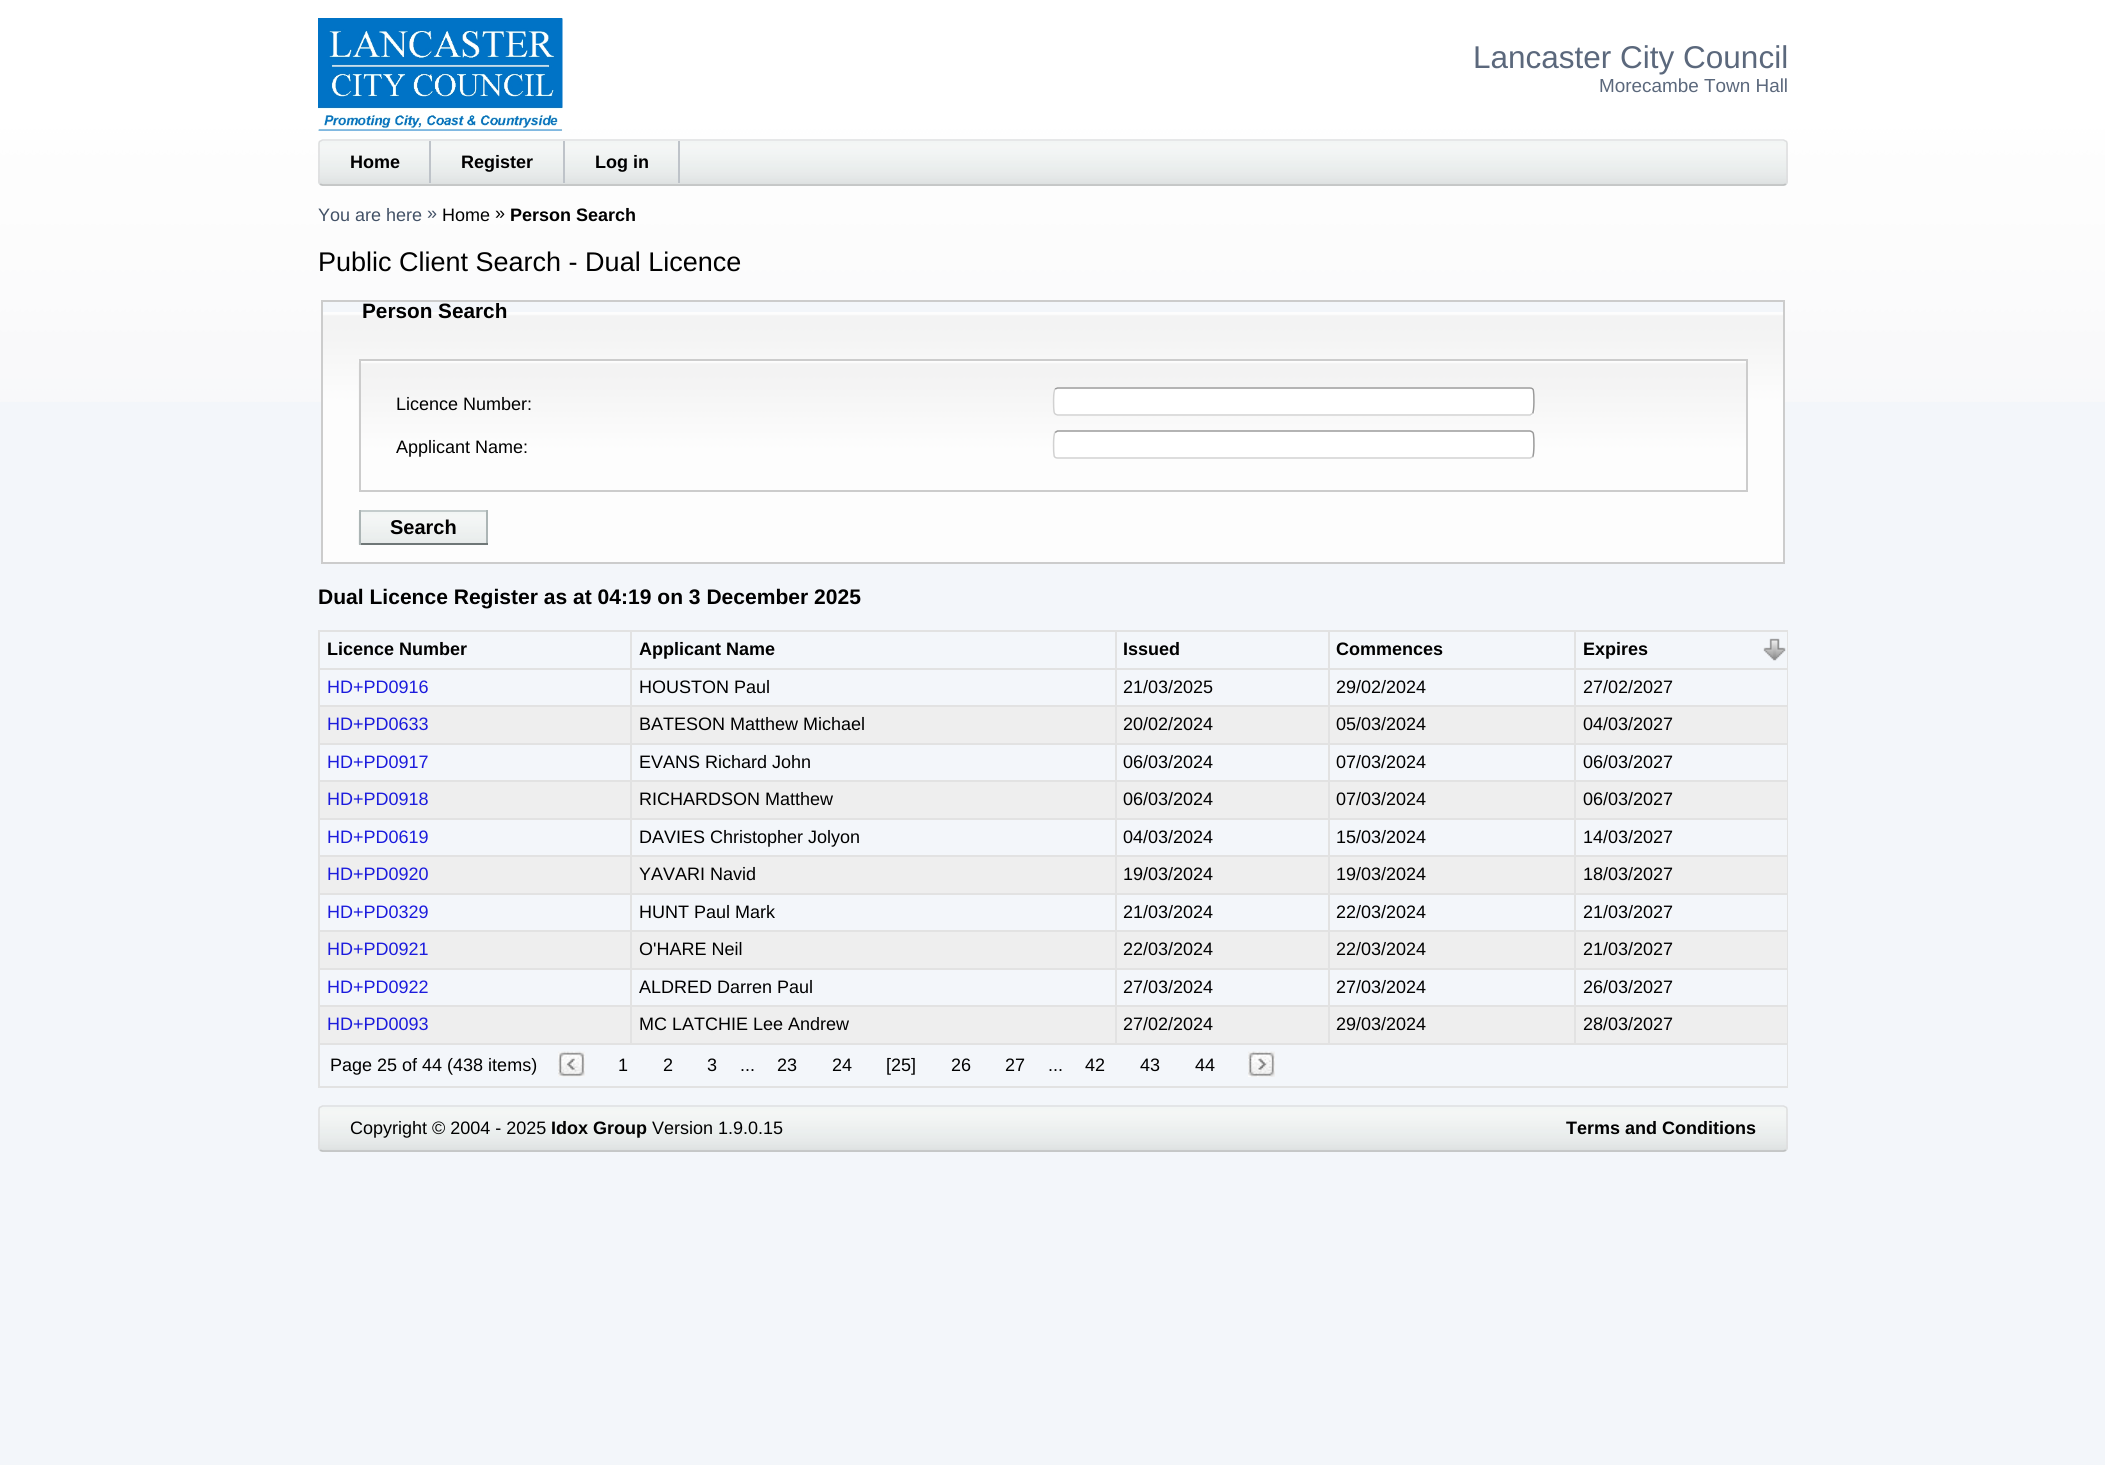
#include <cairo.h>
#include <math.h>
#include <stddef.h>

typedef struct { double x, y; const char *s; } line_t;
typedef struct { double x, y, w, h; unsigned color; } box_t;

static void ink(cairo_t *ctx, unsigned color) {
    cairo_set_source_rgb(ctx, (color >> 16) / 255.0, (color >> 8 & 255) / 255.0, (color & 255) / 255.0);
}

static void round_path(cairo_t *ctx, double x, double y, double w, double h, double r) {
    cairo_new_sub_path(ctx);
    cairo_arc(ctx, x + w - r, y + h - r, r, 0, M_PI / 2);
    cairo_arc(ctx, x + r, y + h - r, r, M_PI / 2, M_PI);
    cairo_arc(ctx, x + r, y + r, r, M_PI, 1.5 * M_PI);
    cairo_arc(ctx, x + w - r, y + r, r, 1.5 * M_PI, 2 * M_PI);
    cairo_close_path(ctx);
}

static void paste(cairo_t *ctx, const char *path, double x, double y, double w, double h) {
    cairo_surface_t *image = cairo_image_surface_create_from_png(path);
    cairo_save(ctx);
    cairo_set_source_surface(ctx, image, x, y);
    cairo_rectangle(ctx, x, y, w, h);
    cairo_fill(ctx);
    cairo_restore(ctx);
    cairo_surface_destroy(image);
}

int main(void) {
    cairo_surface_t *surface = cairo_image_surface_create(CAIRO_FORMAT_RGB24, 2105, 1465);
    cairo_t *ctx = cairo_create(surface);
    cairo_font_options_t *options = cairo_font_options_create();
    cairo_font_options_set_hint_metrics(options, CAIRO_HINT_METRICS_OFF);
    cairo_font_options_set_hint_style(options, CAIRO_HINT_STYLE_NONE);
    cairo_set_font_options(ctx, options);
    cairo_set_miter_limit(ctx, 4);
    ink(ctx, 0xF3F6FA);
    cairo_paint(ctx);
    paste(ctx, "media/1.png", 0, 0, 2105, 402);
    paste(ctx, "media/2.png", 318, 18, 245, 113);
    cairo_select_font_face(ctx, "Liberation Sans", CAIRO_FONT_SLANT_NORMAL, CAIRO_FONT_WEIGHT_NORMAL);
    cairo_set_font_size(ctx, 31.5);
    ink(ctx, 0x5B687C);
    cairo_move_to(ctx, 1473, 68);
    cairo_show_text(ctx, "Lancaster City Council");
    cairo_set_font_size(ctx, 18.9);
    cairo_move_to(ctx, 1599, 92);
    cairo_show_text(ctx, "Morecambe Town Hall");
    paste(ctx, "media/3.png", 318, 141, 1470, 45);
    cairo_new_path(ctx);
    cairo_move_to(ctx, 1786, 184);
    cairo_line_to(ctx, 1783.5, 185);
    cairo_line_to(ctx, 322.5, 185);
    cairo_line_to(ctx, 320, 184);
    ink(ctx, 0xBDBFBF);
    cairo_set_line_width(ctx, 1.5);
    cairo_stroke(ctx);
    cairo_new_path(ctx);
    cairo_move_to(ctx, 320, 184);
    cairo_line_to(ctx, 319, 182);
    cairo_line_to(ctx, 319, 143.5);
    cairo_line_to(ctx, 319.5, 141.5);
    cairo_curve_to(ctx, 320.5, 141, 321.5, 140.5, 322.5, 140);
    cairo_line_to(ctx, 1783.5, 140);
    cairo_curve_to(ctx, 1784.5, 140.5, 1785.5, 141, 1786.5, 141.5);
    cairo_line_to(ctx, 1787, 143.5);
    cairo_line_to(ctx, 1787, 182);
    cairo_line_to(ctx, 1786, 184);
    ink(ctx, 0xDDDEDF);
    cairo_stroke(ctx);
    ink(ctx, 0xBEC3C9);
    cairo_rectangle(ctx, 429, 141, 2, 42);
    cairo_fill(ctx);
    cairo_select_font_face(ctx, "Liberation Sans", CAIRO_FONT_SLANT_NORMAL, CAIRO_FONT_WEIGHT_BOLD);
    cairo_set_font_size(ctx, 18);
    ink(ctx, 0x000000);
    cairo_move_to(ctx, 350, 168);
    cairo_show_text(ctx, "Home");
    ink(ctx, 0xBEC3C9);
    cairo_rectangle(ctx, 563, 141, 2, 42);
    cairo_fill(ctx);
    ink(ctx, 0x000000);
    cairo_move_to(ctx, 461, 168);
    cairo_show_text(ctx, "Register");
    ink(ctx, 0xBEC3C9);
    cairo_rectangle(ctx, 678, 141, 2, 42);
    cairo_fill(ctx);
    ink(ctx, 0x000000);
    cairo_move_to(ctx, 595, 168);
    cairo_show_text(ctx, "Log in");
    cairo_select_font_face(ctx, "Liberation Sans", CAIRO_FONT_SLANT_NORMAL, CAIRO_FONT_WEIGHT_NORMAL);
    ink(ctx, 0x425166);
    cairo_move_to(ctx, 318, 221);
    cairo_show_text(ctx, "You are here");
    cairo_move_to(ctx, 427, 219);
    cairo_show_text(ctx, "»");
    ink(ctx, 0x000000);
    cairo_move_to(ctx, 442, 221);
    cairo_show_text(ctx, "Home");
    cairo_move_to(ctx, 495, 219);
    cairo_show_text(ctx, "»");
    cairo_select_font_face(ctx, "Liberation Sans", CAIRO_FONT_SLANT_NORMAL, CAIRO_FONT_WEIGHT_BOLD);
    cairo_move_to(ctx, 510, 221);
    cairo_show_text(ctx, "Person Search");
    cairo_select_font_face(ctx, "Liberation Sans", CAIRO_FONT_SLANT_NORMAL, CAIRO_FONT_WEIGHT_NORMAL);
    cairo_set_font_size(ctx, 27);
    cairo_move_to(ctx, 318, 271);
    cairo_show_text(ctx, "Public Client Search - Dual Licence");
    ink(ctx, 0xF3F6FA);
    cairo_rectangle(ctx, 323, 302, 1460, 10);
    cairo_fill(ctx);
    paste(ctx, "media/4.png", 323, 312, 1460, 250);
    cairo_rectangle(ctx, 322, 301, 1462, 262);
    ink(ctx, 0xCCCCCC);
    cairo_set_line_width(ctx, 2);
    cairo_stroke(ctx);
    cairo_select_font_face(ctx, "Liberation Sans", CAIRO_FONT_SLANT_NORMAL, CAIRO_FONT_WEIGHT_BOLD);
    cairo_set_font_size(ctx, 20.75);
    ink(ctx, 0x000000);
    cairo_move_to(ctx, 362, 318);
    cairo_show_text(ctx, "Person Search");
    paste(ctx, "media/5.png", 358, 360, 1388, 132);
    cairo_rectangle(ctx, 360, 360, 1387, 131);
    ink(ctx, 0xCCCCCC);
    cairo_stroke(ctx);
    cairo_select_font_face(ctx, "Liberation Sans", CAIRO_FONT_SLANT_NORMAL, CAIRO_FONT_WEIGHT_NORMAL);
    cairo_set_font_size(ctx, 18);
    ink(ctx, 0x000000);
    cairo_move_to(ctx, 396, 410);
    cairo_show_text(ctx, "Licence Number:");
    ink(ctx, 0xFFFFFF);
    round_path(ctx, 1053, 387, 482, 29, 5);
    cairo_fill(ctx);
    cairo_new_path(ctx);
    cairo_move_to(ctx, 1055, 389);
    cairo_line_to(ctx, 1057.5, 388);
    cairo_line_to(ctx, 1530, 388);
    cairo_curve_to(ctx, 1532, 388, 1533.5, 389, 1533.5, 391);
    cairo_curve_to(ctx, 1534, 393, 1534.5, 411.5, 1532.5, 413.5);
    ink(ctx, 0x999999);
    cairo_set_line_width(ctx, 1.5);
    cairo_stroke(ctx);
    cairo_new_path(ctx);
    cairo_move_to(ctx, 1532.5, 413.5);
    cairo_line_to(ctx, 1530, 415);
    cairo_line_to(ctx, 1057.5, 415);
    cairo_curve_to(ctx, 1055.5, 414.5, 1054, 413.5, 1054, 411.5);
    cairo_curve_to(ctx, 1053.5, 409.5, 1053, 391, 1055, 389);
    ink(ctx, 0xD1D1D1);
    cairo_stroke(ctx);
    ink(ctx, 0x000000);
    cairo_move_to(ctx, 396, 453);
    cairo_show_text(ctx, "Applicant Name:");
    ink(ctx, 0xFFFFFF);
    round_path(ctx, 1053, 431, 482, 28, 5);
    cairo_fill(ctx);
    cairo_new_path(ctx);
    cairo_move_to(ctx, 1055, 432.5);
    cairo_line_to(ctx, 1057.5, 431);
    cairo_line_to(ctx, 1530, 431);
    cairo_curve_to(ctx, 1532, 431.5, 1533.5, 432.5, 1533.5, 434.5);
    cairo_curve_to(ctx, 1534, 436.5, 1534.5, 455, 1532.5, 457);
    ink(ctx, 0x999999);
    cairo_stroke(ctx);
    cairo_new_path(ctx);
    cairo_move_to(ctx, 1532.5, 457);
    cairo_line_to(ctx, 1530, 458);
    cairo_line_to(ctx, 1057.5, 458);
    cairo_curve_to(ctx, 1055.5, 458, 1054, 457, 1054, 455);
    cairo_curve_to(ctx, 1053.5, 453, 1053, 434.5, 1055, 432.5);
    ink(ctx, 0xD1D1D1);
    cairo_stroke(ctx);
    paste(ctx, "media/6.png", 358, 512, 128, 33);
    {
        static const box_t items[] = {
            {359, 510, 129, 2, 0xC4CCCC},
            {486, 510, 2, 35, 0xACB5B5},
            {359, 543, 129, 2, 0x6F7777},
            {359, 510, 2, 35, 0xACB5B5},
        };
        for (size_t i = 0; i < sizeof items / sizeof *items; i++) {
            ink(ctx, items[i].color);
            cairo_rectangle(ctx, items[i].x, items[i].y, items[i].w, items[i].h);
            cairo_fill(ctx);
        }
    }
    cairo_select_font_face(ctx, "Liberation Sans", CAIRO_FONT_SLANT_NORMAL, CAIRO_FONT_WEIGHT_BOLD);
    cairo_set_font_size(ctx, 20);
    ink(ctx, 0x000000);
    cairo_move_to(ctx, 390, 534);
    cairo_show_text(ctx, "Search");
    cairo_set_font_size(ctx, 21.05);
    cairo_move_to(ctx, 318, 604);
    cairo_show_text(ctx, "Dual Licence Register as at 04:19 on 3 December 2025");
    {
        static const box_t items[] = {
            {1574, 630, 214, 2, 0xE2E2E2},
            {1574, 668, 214, 2, 0xE2E2E2},
            {1574, 705, 214, 2, 0xE2E2E2},
            {320, 707, 1467, 36, 0xEEEEEE},
            {1574, 743, 214, 2, 0xE2E2E2},
            {1574, 780, 214, 2, 0xE2E2E2},
            {320, 782, 1467, 36, 0xEEEEEE},
            {1574, 818, 214, 2, 0xE2E2E2},
            {1574, 855, 214, 2, 0xE2E2E2},
            {320, 857, 1467, 36, 0xEEEEEE},
            {1574, 893, 214, 2, 0xE2E2E2},
            {1574, 930, 214, 2, 0xE2E2E2},
            {320, 932, 1467, 36, 0xEEEEEE},
            {1574, 968, 214, 2, 0xE2E2E2},
            {1574, 1005, 214, 2, 0xE2E2E2},
            {320, 1007, 1467, 36, 0xEEEEEE},
            {1787, 1005, 1, 39, 0xE2E2E2},
            {1574, 1043, 214, 2, 0xE2E2E2},
            {1574, 1005, 2, 39, 0xE2E2E2},
            {1328, 1005, 247, 2, 0xE2E2E2},
            {1574, 968, 2, 39, 0xE2E2E2},
            {1328, 968, 247, 2, 0xE2E2E2},
            {1574, 930, 2, 39, 0xE2E2E2},
            {1328, 930, 247, 2, 0xE2E2E2},
            {1574, 893, 2, 39, 0xE2E2E2},
            {1328, 893, 247, 2, 0xE2E2E2},
            {1574, 855, 2, 39, 0xE2E2E2},
            {1328, 855, 247, 2, 0xE2E2E2},
            {1574, 818, 2, 39, 0xE2E2E2},
            {1328, 818, 247, 2, 0xE2E2E2},
            {1574, 780, 2, 39, 0xE2E2E2},
            {1328, 780, 247, 2, 0xE2E2E2},
            {1574, 743, 2, 39, 0xE2E2E2},
            {1328, 743, 247, 2, 0xE2E2E2},
            {1574, 705, 2, 39, 0xE2E2E2},
            {1328, 705, 247, 2, 0xE2E2E2},
            {1574, 668, 2, 39, 0xE2E2E2},
            {1328, 668, 247, 2, 0xE2E2E2},
            {1574, 630, 2, 39, 0xE2E2E2},
            {1328, 630, 247, 2, 0xE2E2E2},
            {1328, 1043, 247, 2, 0xE2E2E2},
            {1328, 1005, 2, 39, 0xE2E2E2},
            {1115, 1005, 214, 2, 0xE2E2E2},
            {1328, 968, 2, 39, 0xE2E2E2},
            {1115, 968, 214, 2, 0xE2E2E2},
            {1328, 930, 2, 39, 0xE2E2E2},
            {1115, 930, 214, 2, 0xE2E2E2},
            {1328, 893, 2, 39, 0xE2E2E2},
            {1115, 893, 214, 2, 0xE2E2E2},
            {1328, 855, 2, 39, 0xE2E2E2},
            {1115, 855, 214, 2, 0xE2E2E2},
            {1328, 818, 2, 39, 0xE2E2E2},
            {1115, 818, 214, 2, 0xE2E2E2},
            {1328, 780, 2, 39, 0xE2E2E2},
            {1115, 780, 214, 2, 0xE2E2E2},
            {1328, 743, 2, 39, 0xE2E2E2},
            {1115, 743, 214, 2, 0xE2E2E2},
            {1328, 705, 2, 39, 0xE2E2E2},
            {1115, 705, 214, 2, 0xE2E2E2},
            {1328, 668, 2, 39, 0xE2E2E2},
            {1115, 668, 214, 2, 0xE2E2E2},
            {1328, 630, 2, 39, 0xE2E2E2},
            {1115, 630, 214, 2, 0xE2E2E2},
            {1115, 1043, 214, 2, 0xE2E2E2},
            {1115, 1005, 2, 39, 0xE2E2E2},
            {630, 1005, 486, 2, 0xE2E2E2},
            {1115, 968, 2, 39, 0xE2E2E2},
            {630, 968, 486, 2, 0xE2E2E2},
            {1115, 930, 2, 39, 0xE2E2E2},
            {630, 930, 486, 2, 0xE2E2E2},
            {1115, 893, 2, 39, 0xE2E2E2},
            {630, 893, 486, 2, 0xE2E2E2},
            {1115, 855, 2, 39, 0xE2E2E2},
            {630, 855, 486, 2, 0xE2E2E2},
            {1115, 818, 2, 39, 0xE2E2E2},
            {630, 818, 486, 2, 0xE2E2E2},
            {1115, 780, 2, 39, 0xE2E2E2},
            {630, 780, 486, 2, 0xE2E2E2},
            {1115, 743, 2, 39, 0xE2E2E2},
            {630, 743, 486, 2, 0xE2E2E2},
            {1115, 705, 2, 39, 0xE2E2E2},
            {630, 705, 486, 2, 0xE2E2E2},
            {1115, 668, 2, 39, 0xE2E2E2},
            {630, 668, 486, 2, 0xE2E2E2},
            {1115, 630, 2, 39, 0xE2E2E2},
            {630, 630, 486, 2, 0xE2E2E2},
            {630, 1043, 486, 2, 0xE2E2E2},
            {630, 1005, 2, 39, 0xE2E2E2},
            {318, 1005, 314, 2, 0xE2E2E2},
            {630, 968, 2, 39, 0xE2E2E2},
            {318, 968, 314, 2, 0xE2E2E2},
            {630, 930, 2, 39, 0xE2E2E2},
            {318, 930, 314, 2, 0xE2E2E2},
            {630, 893, 2, 39, 0xE2E2E2},
            {318, 893, 314, 2, 0xE2E2E2},
            {630, 855, 2, 39, 0xE2E2E2},
            {318, 855, 314, 2, 0xE2E2E2},
            {630, 818, 2, 39, 0xE2E2E2},
            {318, 818, 314, 2, 0xE2E2E2},
            {630, 780, 2, 39, 0xE2E2E2},
            {318, 780, 314, 2, 0xE2E2E2},
            {630, 743, 2, 39, 0xE2E2E2},
            {318, 743, 314, 2, 0xE2E2E2},
            {630, 705, 2, 39, 0xE2E2E2},
            {318, 705, 314, 2, 0xE2E2E2},
            {630, 668, 2, 39, 0xE2E2E2},
            {318, 668, 314, 2, 0xE2E2E2},
            {630, 630, 2, 39, 0xE2E2E2},
            {318, 630, 314, 2, 0xE2E2E2},
            {318, 1043, 314, 2, 0xE2E2E2},
            {318, 1005, 2, 39, 0xE2E2E2},
            {318, 968, 2, 39, 0xE2E2E2},
            {318, 930, 2, 39, 0xE2E2E2},
            {318, 893, 2, 39, 0xE2E2E2},
            {318, 855, 2, 39, 0xE2E2E2},
            {318, 818, 2, 39, 0xE2E2E2},
            {318, 780, 2, 39, 0xE2E2E2},
            {318, 743, 2, 39, 0xE2E2E2},
            {318, 705, 2, 39, 0xE2E2E2},
            {318, 668, 2, 39, 0xE2E2E2},
            {318, 630, 2, 39, 0xE2E2E2},
        };
        for (size_t i = 0; i < sizeof items / sizeof *items; i++) {
            ink(ctx, items[i].color);
            cairo_rectangle(ctx, items[i].x, items[i].y, items[i].w, items[i].h);
            cairo_fill(ctx);
        }
    }
    cairo_set_font_size(ctx, 18);
    ink(ctx, 0x000000);
    {
        static const line_t items[] = {
            {327, 655, "Licence Number"},
            {639, 655, "Applicant Name"},
            {1123, 655, "Issued"},
            {1336, 655, "Commences"},
        };
        for (size_t i = 0; i < sizeof items / sizeof *items; i++) {
            cairo_move_to(ctx, items[i].x, items[i].y);
            cairo_show_text(ctx, items[i].s);
        }
    }
    paste(ctx, "media/7.png", 1763, 638, 23, 23);
    {
        static const box_t items[] = {
            {1787, 968, 1, 39, 0xE2E2E2},
            {1787, 930, 1, 39, 0xE2E2E2},
            {1787, 893, 1, 39, 0xE2E2E2},
            {1787, 855, 1, 39, 0xE2E2E2},
            {1787, 818, 1, 39, 0xE2E2E2},
            {1787, 780, 1, 39, 0xE2E2E2},
            {1787, 743, 1, 39, 0xE2E2E2},
            {1787, 705, 1, 39, 0xE2E2E2},
            {1787, 668, 1, 39, 0xE2E2E2},
            {1787, 630, 1, 39, 0xE2E2E2},
        };
        for (size_t i = 0; i < sizeof items / sizeof *items; i++) {
            ink(ctx, items[i].color);
            cairo_rectangle(ctx, items[i].x, items[i].y, items[i].w, items[i].h);
            cairo_fill(ctx);
        }
    }
    ink(ctx, 0x000000);
    cairo_move_to(ctx, 1583, 655);
    cairo_show_text(ctx, "Expires");
    cairo_select_font_face(ctx, "Liberation Sans", CAIRO_FONT_SLANT_NORMAL, CAIRO_FONT_WEIGHT_NORMAL);
    ink(ctx, 0x1B1BDD);
    cairo_move_to(ctx, 327, 693);
    cairo_show_text(ctx, "HD+PD0916");
    ink(ctx, 0x000000);
    {
        static const line_t items[] = {
            {639, 693, "HOUSTON Paul"},
            {1123, 693, "21/03/2025"},
            {1336, 693, "29/02/2024"},
            {1583, 693, "27/02/2027"},
        };
        for (size_t i = 0; i < sizeof items / sizeof *items; i++) {
            cairo_move_to(ctx, items[i].x, items[i].y);
            cairo_show_text(ctx, items[i].s);
        }
    }
    ink(ctx, 0x1B1BDD);
    cairo_move_to(ctx, 327, 730);
    cairo_show_text(ctx, "HD+PD0633");
    ink(ctx, 0x000000);
    {
        static const line_t items[] = {
            {639, 730, "BATESON Matthew Michael"},
            {1123, 730, "20/02/2024"},
            {1336, 730, "05/03/2024"},
            {1583, 730, "04/03/2027"},
        };
        for (size_t i = 0; i < sizeof items / sizeof *items; i++) {
            cairo_move_to(ctx, items[i].x, items[i].y);
            cairo_show_text(ctx, items[i].s);
        }
    }
    ink(ctx, 0x1B1BDD);
    cairo_move_to(ctx, 327, 768);
    cairo_show_text(ctx, "HD+PD0917");
    ink(ctx, 0x000000);
    {
        static const line_t items[] = {
            {639, 768, "EVANS Richard John"},
            {1123, 768, "06/03/2024"},
            {1336, 768, "07/03/2024"},
            {1583, 768, "06/03/2027"},
        };
        for (size_t i = 0; i < sizeof items / sizeof *items; i++) {
            cairo_move_to(ctx, items[i].x, items[i].y);
            cairo_show_text(ctx, items[i].s);
        }
    }
    ink(ctx, 0x1B1BDD);
    cairo_move_to(ctx, 327, 805);
    cairo_show_text(ctx, "HD+PD0918");
    ink(ctx, 0x000000);
    {
        static const line_t items[] = {
            {639, 805, "RICHARDSON Matthew"},
            {1123, 805, "06/03/2024"},
            {1336, 805, "07/03/2024"},
            {1583, 805, "06/03/2027"},
        };
        for (size_t i = 0; i < sizeof items / sizeof *items; i++) {
            cairo_move_to(ctx, items[i].x, items[i].y);
            cairo_show_text(ctx, items[i].s);
        }
    }
    ink(ctx, 0x1B1BDD);
    cairo_move_to(ctx, 327, 843);
    cairo_show_text(ctx, "HD+PD0619");
    ink(ctx, 0x000000);
    {
        static const line_t items[] = {
            {639, 843, "DAVIES Christopher Jolyon"},
            {1123, 843, "04/03/2024"},
            {1336, 843, "15/03/2024"},
            {1583, 843, "14/03/2027"},
        };
        for (size_t i = 0; i < sizeof items / sizeof *items; i++) {
            cairo_move_to(ctx, items[i].x, items[i].y);
            cairo_show_text(ctx, items[i].s);
        }
    }
    ink(ctx, 0x1B1BDD);
    cairo_move_to(ctx, 327, 880);
    cairo_show_text(ctx, "HD+PD0920");
    ink(ctx, 0x000000);
    {
        static const line_t items[] = {
            {639, 880, "YAVARI Navid"},
            {1123, 880, "19/03/2024"},
            {1336, 880, "19/03/2024"},
            {1583, 880, "18/03/2027"},
        };
        for (size_t i = 0; i < sizeof items / sizeof *items; i++) {
            cairo_move_to(ctx, items[i].x, items[i].y);
            cairo_show_text(ctx, items[i].s);
        }
    }
    ink(ctx, 0x1B1BDD);
    cairo_move_to(ctx, 327, 918);
    cairo_show_text(ctx, "HD+PD0329");
    ink(ctx, 0x000000);
    {
        static const line_t items[] = {
            {639, 918, "HUNT Paul Mark"},
            {1123, 918, "21/03/2024"},
            {1336, 918, "22/03/2024"},
            {1583, 918, "21/03/2027"},
        };
        for (size_t i = 0; i < sizeof items / sizeof *items; i++) {
            cairo_move_to(ctx, items[i].x, items[i].y);
            cairo_show_text(ctx, items[i].s);
        }
    }
    ink(ctx, 0x1B1BDD);
    cairo_move_to(ctx, 327, 955);
    cairo_show_text(ctx, "HD+PD0921");
    ink(ctx, 0x000000);
    {
        static const line_t items[] = {
            {639, 955, "O'HARE Neil"},
            {1123, 955, "22/03/2024"},
            {1336, 955, "22/03/2024"},
            {1583, 955, "21/03/2027"},
        };
        for (size_t i = 0; i < sizeof items / sizeof *items; i++) {
            cairo_move_to(ctx, items[i].x, items[i].y);
            cairo_show_text(ctx, items[i].s);
        }
    }
    ink(ctx, 0x1B1BDD);
    cairo_move_to(ctx, 327, 993);
    cairo_show_text(ctx, "HD+PD0922");
    ink(ctx, 0x000000);
    {
        static const line_t items[] = {
            {639, 993, "ALDRED Darren Paul"},
            {1123, 993, "27/03/2024"},
            {1336, 993, "27/03/2024"},
            {1583, 993, "26/03/2027"},
        };
        for (size_t i = 0; i < sizeof items / sizeof *items; i++) {
            cairo_move_to(ctx, items[i].x, items[i].y);
            cairo_show_text(ctx, items[i].s);
        }
    }
    ink(ctx, 0x1B1BDD);
    cairo_move_to(ctx, 327, 1030);
    cairo_show_text(ctx, "HD+PD0093");
    ink(ctx, 0x000000);
    {
        static const line_t items[] = {
            {639, 1030, "MC LATCHIE Lee Andrew"},
            {1123, 1030, "27/02/2024"},
            {1336, 1030, "29/03/2024"},
            {1583, 1030, "28/03/2027"},
        };
        for (size_t i = 0; i < sizeof items / sizeof *items; i++) {
            cairo_move_to(ctx, items[i].x, items[i].y);
            cairo_show_text(ctx, items[i].s);
        }
    }
    {
        static const box_t items[] = {
            {1787, 1044, 1, 44, 0xE2E2E2},
            {318, 1086, 1470, 2, 0xE2E2E2},
            {318, 1044, 2, 44, 0xE2E2E2},
        };
        for (size_t i = 0; i < sizeof items / sizeof *items; i++) {
            ink(ctx, items[i].color);
            cairo_rectangle(ctx, items[i].x, items[i].y, items[i].w, items[i].h);
            cairo_fill(ctx);
        }
    }
    ink(ctx, 0x000000);
    cairo_move_to(ctx, 330, 1071);
    cairo_show_text(ctx, "Page 25 of 44 (438 items)");
    paste(ctx, "media/8.png", 558, 1051, 27, 26);
    {
        static const line_t items[] = {
            {618, 1071, "1"},
            {663, 1071, "2"},
            {707, 1071, "3"},
            {740, 1071, "..."},
            {777, 1071, "23"},
            {832, 1071, "24"},
            {886, 1071, "[25]"},
            {951, 1071, "26"},
            {1005, 1071, "27"},
            {1048, 1071, "..."},
            {1085, 1071, "42"},
            {1140, 1071, "43"},
            {1195, 1071, "44"},
        };
        for (size_t i = 0; i < sizeof items / sizeof *items; i++) {
            cairo_move_to(ctx, items[i].x, items[i].y);
            cairo_show_text(ctx, items[i].s);
        }
    }
    paste(ctx, "media/9.png", 1248, 1051, 27, 26);
    paste(ctx, "media/10.png", 318, 1107, 1470, 45);
    cairo_new_path(ctx);
    cairo_move_to(ctx, 1786, 1150);
    cairo_line_to(ctx, 1783.5, 1151);
    cairo_line_to(ctx, 322.5, 1151);
    cairo_line_to(ctx, 320, 1150);
    ink(ctx, 0xBDBFBF);
    cairo_stroke(ctx);
    cairo_new_path(ctx);
    cairo_move_to(ctx, 320, 1150);
    cairo_line_to(ctx, 319, 1148);
    cairo_line_to(ctx, 319, 1109.5);
    cairo_line_to(ctx, 319.5, 1107.5);
    cairo_curve_to(ctx, 320.5, 1107, 321.5, 1106.5, 322.5, 1106);
    cairo_line_to(ctx, 1783.5, 1106);
    cairo_curve_to(ctx, 1784.5, 1106.5, 1785.5, 1107, 1786.5, 1107.5);
    cairo_line_to(ctx, 1787, 1109.5);
    cairo_line_to(ctx, 1787, 1148);
    cairo_line_to(ctx, 1786, 1150);
    ink(ctx, 0xDDDEDF);
    cairo_stroke(ctx);
    ink(ctx, 0x000000);
    cairo_move_to(ctx, 350, 1134);
    cairo_show_text(ctx, "Copyright © 2004 - 2025");
    cairo_select_font_face(ctx, "Liberation Sans", CAIRO_FONT_SLANT_NORMAL, CAIRO_FONT_WEIGHT_BOLD);
    cairo_move_to(ctx, 551, 1134);
    cairo_show_text(ctx, "Idox Group");
    cairo_select_font_face(ctx, "Liberation Sans", CAIRO_FONT_SLANT_NORMAL, CAIRO_FONT_WEIGHT_NORMAL);
    cairo_move_to(ctx, 652, 1134);
    cairo_show_text(ctx, "Version 1.9.0.15");
    cairo_select_font_face(ctx, "Liberation Sans", CAIRO_FONT_SLANT_NORMAL, CAIRO_FONT_WEIGHT_BOLD);
    cairo_move_to(ctx, 1566, 1134);
    cairo_show_text(ctx, "Terms and Conditions");
    cairo_surface_write_to_png(surface, "image.png");
    cairo_font_options_destroy(options);
    cairo_destroy(ctx);
    cairo_surface_destroy(surface);
    return 0;
}
